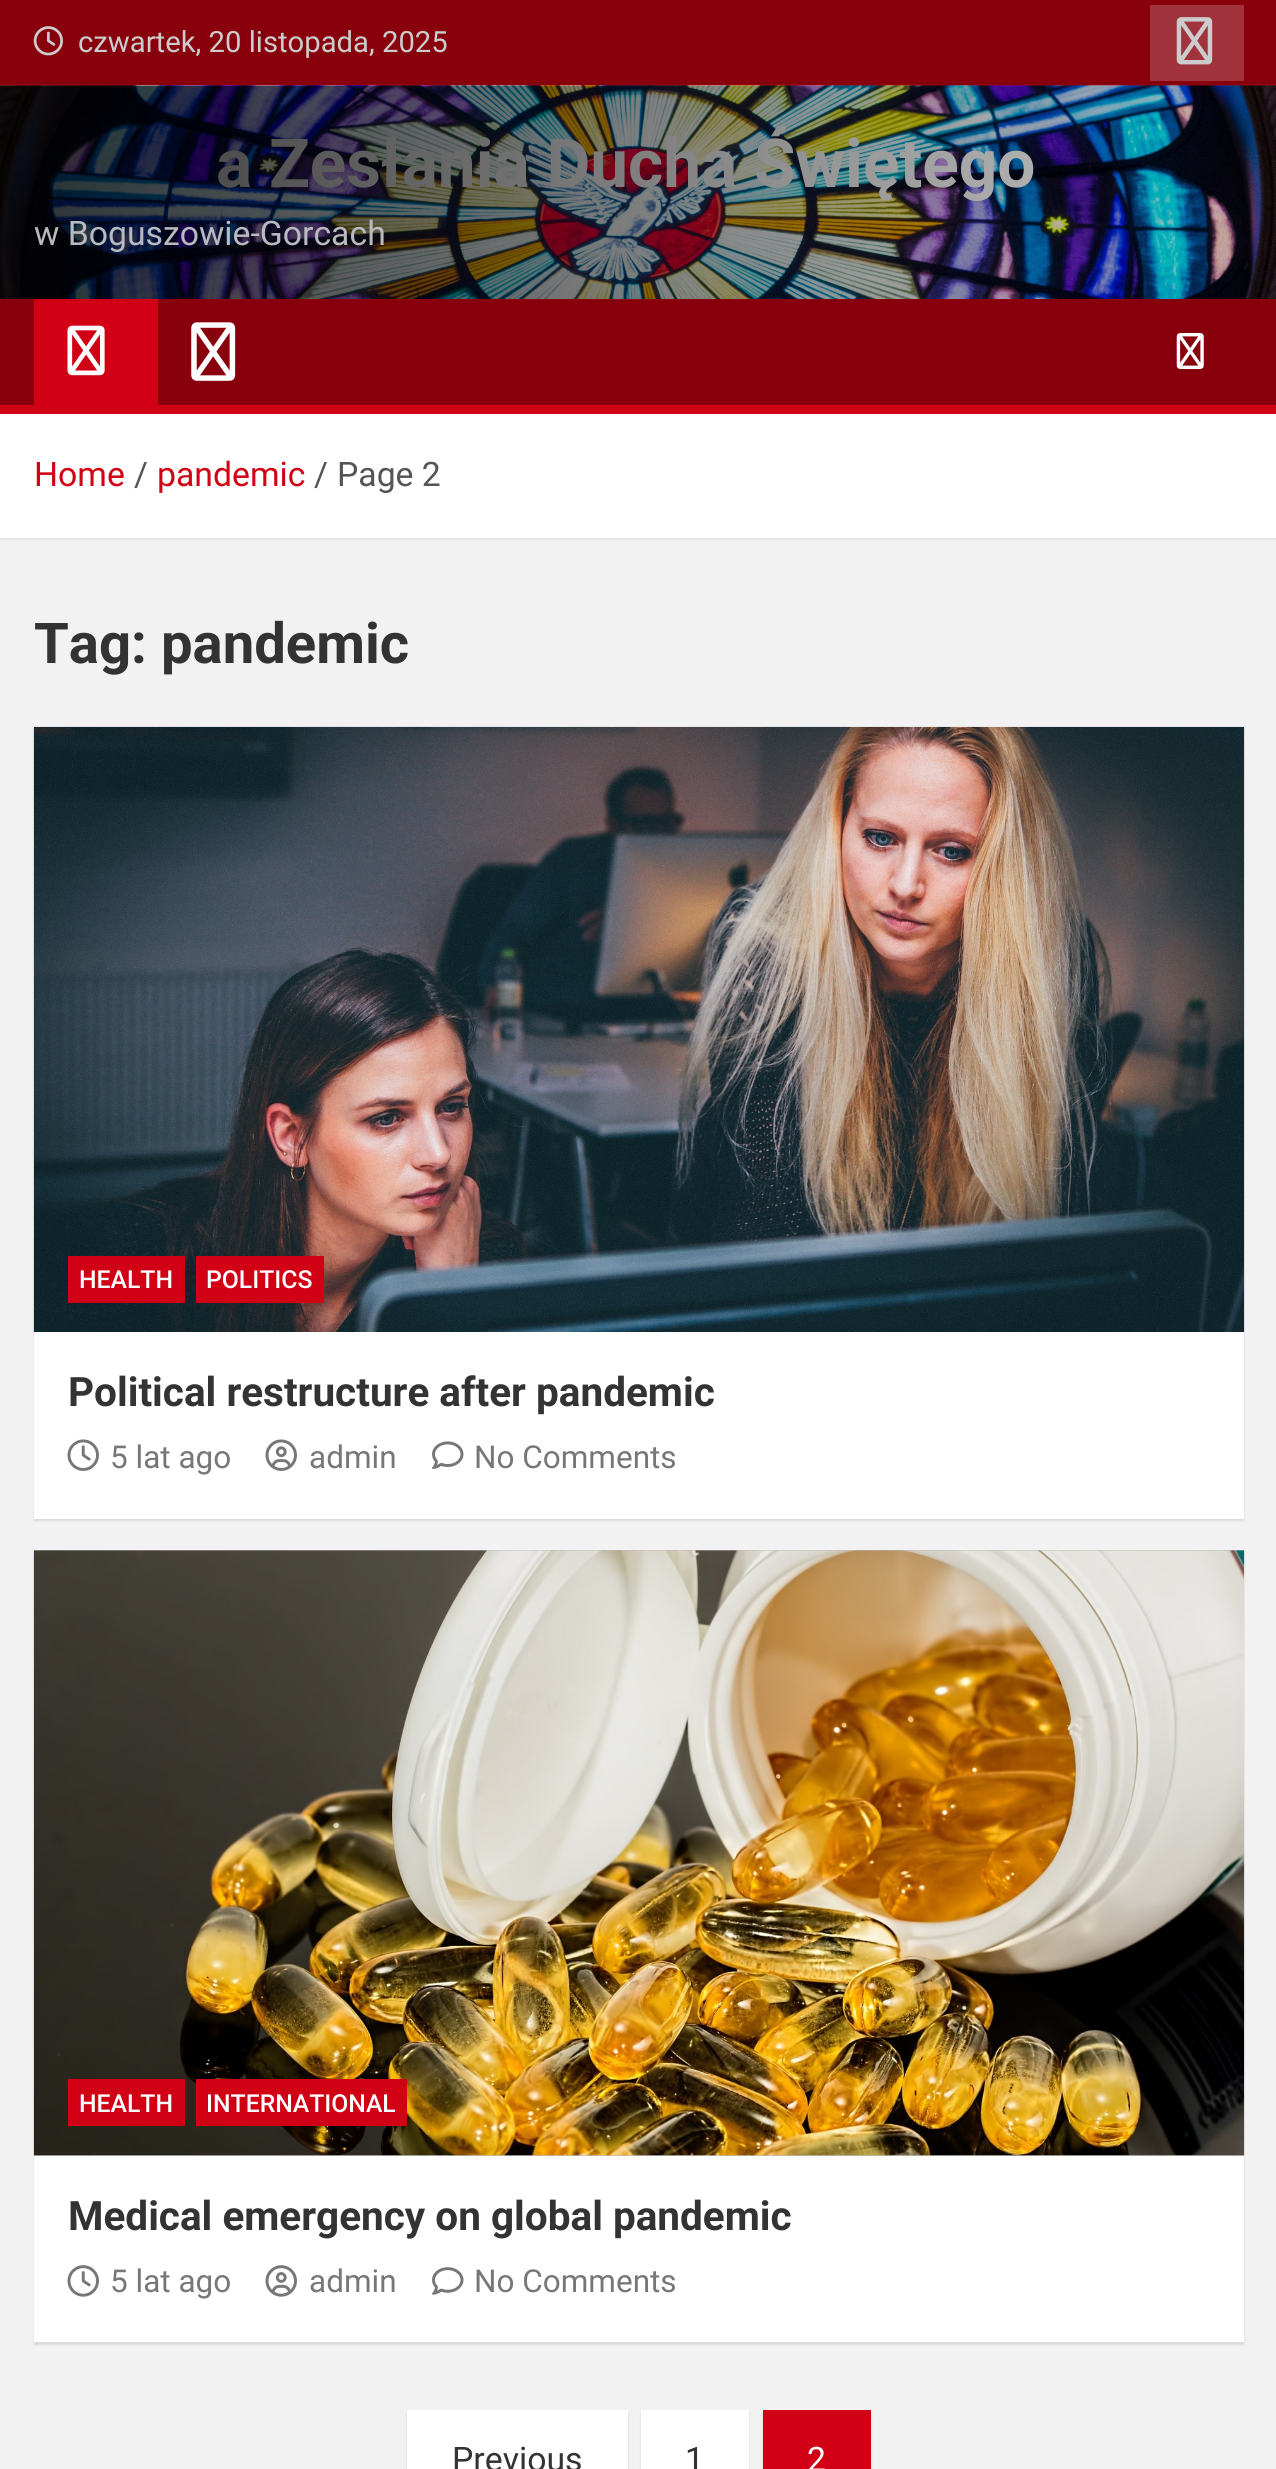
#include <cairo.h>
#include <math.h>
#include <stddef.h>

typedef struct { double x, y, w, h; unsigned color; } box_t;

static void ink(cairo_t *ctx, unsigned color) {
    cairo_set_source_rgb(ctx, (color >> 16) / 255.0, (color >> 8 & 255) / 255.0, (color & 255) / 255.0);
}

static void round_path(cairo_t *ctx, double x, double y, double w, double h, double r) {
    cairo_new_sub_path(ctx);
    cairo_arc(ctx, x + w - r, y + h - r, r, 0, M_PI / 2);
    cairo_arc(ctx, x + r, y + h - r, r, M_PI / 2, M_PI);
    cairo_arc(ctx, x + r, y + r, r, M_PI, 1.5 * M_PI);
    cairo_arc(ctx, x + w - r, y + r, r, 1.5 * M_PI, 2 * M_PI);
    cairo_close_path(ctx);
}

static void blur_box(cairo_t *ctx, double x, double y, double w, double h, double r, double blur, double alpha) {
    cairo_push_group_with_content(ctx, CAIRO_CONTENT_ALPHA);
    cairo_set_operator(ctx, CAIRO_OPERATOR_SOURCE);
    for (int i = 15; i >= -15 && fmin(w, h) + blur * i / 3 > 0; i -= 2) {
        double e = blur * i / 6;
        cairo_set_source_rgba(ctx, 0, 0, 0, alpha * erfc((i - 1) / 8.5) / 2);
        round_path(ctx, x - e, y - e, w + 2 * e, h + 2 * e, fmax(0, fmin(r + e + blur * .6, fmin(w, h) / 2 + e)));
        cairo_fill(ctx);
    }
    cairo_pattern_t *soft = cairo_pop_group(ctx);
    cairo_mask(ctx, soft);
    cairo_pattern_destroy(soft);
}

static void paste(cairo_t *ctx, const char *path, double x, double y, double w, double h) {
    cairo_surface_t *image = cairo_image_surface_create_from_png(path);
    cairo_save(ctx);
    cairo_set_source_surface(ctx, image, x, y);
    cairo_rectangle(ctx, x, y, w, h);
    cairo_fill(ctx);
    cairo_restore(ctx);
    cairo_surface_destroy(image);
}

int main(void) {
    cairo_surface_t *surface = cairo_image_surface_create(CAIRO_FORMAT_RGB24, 1276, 2469);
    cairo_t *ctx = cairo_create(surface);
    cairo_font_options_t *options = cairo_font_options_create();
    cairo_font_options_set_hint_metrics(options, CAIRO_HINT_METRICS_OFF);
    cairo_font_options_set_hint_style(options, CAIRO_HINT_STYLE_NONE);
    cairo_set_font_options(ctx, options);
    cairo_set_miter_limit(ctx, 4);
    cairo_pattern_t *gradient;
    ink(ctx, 0xF2F2F2);
    cairo_paint(ctx);
    ink(ctx, 0x89000D);
    cairo_rectangle(ctx, 0, 0, 1276, 86);
    cairo_fill(ctx);
    paste(ctx, "media/1.png", 33, 26, 30, 30);
    cairo_select_font_face(ctx, "Roboto", CAIRO_FONT_SLANT_NORMAL, CAIRO_FONT_WEIGHT_NORMAL);
    cairo_set_font_size(ctx, 29.25);
    ink(ctx, 0xCCCCCC);
    cairo_move_to(ctx, 78, 52);
    cairo_show_text(ctx, "czwartek, 20 listopada, 2025");
    ink(ctx, 0xA1333D);
    cairo_rectangle(ctx, 1150, 5, 94, 76);
    cairo_fill(ctx);
    paste(ctx, "media/2.png", 1176, 17, 37, 48);
    paste(ctx, "media/3.png", 0, 85, 1276, 214);
    cairo_select_font_face(ctx, "Roboto", CAIRO_FONT_SLANT_NORMAL, CAIRO_FONT_WEIGHT_BOLD);
    cairo_set_font_size(ctx, 67.5);
    ink(ctx, 0xFFFFFF);
    cairo_move_to(ctx, 216, 187);
    cairo_show_text(ctx, "a Zesłania Ducha Świętego");
    gradient = cairo_pattern_create_linear(0, 192, 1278, 192);
    cairo_pattern_add_color_stop_rgba(gradient, 0, 0, 0, 0, 0.8);
    cairo_pattern_add_color_stop_rgba(gradient, 1, 0, 0, 0, 0.2);
    cairo_set_source(ctx, gradient);
    cairo_pattern_destroy(gradient);
    cairo_rectangle(ctx, 0, 86, 1276, 213);
    cairo_fill(ctx);
    cairo_select_font_face(ctx, "Roboto", CAIRO_FONT_SLANT_NORMAL, CAIRO_FONT_WEIGHT_NORMAL);
    cairo_set_font_size(ctx, 33.75);
    ink(ctx, 0xB9B9C0);
    cairo_move_to(ctx, 34, 245);
    cairo_show_text(ctx, "w Boguszowie-Gorcach");
    ink(ctx, 0x89000D);
    cairo_rectangle(ctx, 0, 299, 1276, 106);
    cairo_fill(ctx);
    ink(ctx, 0xD10014);
    cairo_rectangle(ctx, 34, 299, 124, 106);
    cairo_fill(ctx);
    paste(ctx, "media/4.png", 67, 325, 38, 51);
    paste(ctx, "media/5.png", 191, 322, 45, 59);
    paste(ctx, "media/6.png", 1176, 333, 28, 36);
    {
        static const box_t items[] = {
            {0, 405, 1276, 9, 0xD10014},
            {0, 414, 1276, 124, 0xFFFFFF},
            {0, 538, 1276, 2, 0xE6E6E6},
        };
        for (size_t i = 0; i < sizeof items / sizeof *items; i++) {
            ink(ctx, items[i].color);
            cairo_rectangle(ctx, items[i].x, items[i].y, items[i].w, items[i].h);
            cairo_fill(ctx);
        }
    }
    ink(ctx, 0xD10014);
    cairo_move_to(ctx, 34, 486);
    cairo_show_text(ctx, "Home");
    ink(ctx, 0x555555);
    cairo_move_to(ctx, 134, 486);
    cairo_show_text(ctx, "/");
    ink(ctx, 0xD10014);
    cairo_move_to(ctx, 157, 486);
    cairo_show_text(ctx, "pandemic");
    ink(ctx, 0x555555);
    cairo_move_to(ctx, 314, 486);
    cairo_show_text(ctx, "/");
    cairo_move_to(ctx, 337, 486);
    cairo_show_text(ctx, "Page 2");
    cairo_select_font_face(ctx, "Roboto", CAIRO_FONT_SLANT_NORMAL, CAIRO_FONT_WEIGHT_BOLD);
    cairo_set_font_size(ctx, 56.25);
    ink(ctx, 0x333333);
    cairo_move_to(ctx, 34, 663);
    cairo_show_text(ctx, "Tag: pandemic");
    ink(ctx, 0x000000);
    blur_box(ctx, 34, 729, 1210, 792, 0, 1, 0.1);
    ink(ctx, 0xFFFFFF);
    cairo_rectangle(ctx, 34, 1332, 1210, 187);
    cairo_fill(ctx);
    paste(ctx, "media/7.png", 33, 726, 1212, 606);
    ink(ctx, 0xD10014);
    cairo_rectangle(ctx, 68, 1256, 117, 47);
    cairo_fill(ctx);
    cairo_select_font_face(ctx, "Roboto Medium", CAIRO_FONT_SLANT_NORMAL, CAIRO_FONT_WEIGHT_NORMAL);
    cairo_set_font_size(ctx, 24.75);
    ink(ctx, 0xFFFFFF);
    cairo_move_to(ctx, 79, 1288);
    cairo_show_text(ctx, "HEALTH");
    ink(ctx, 0xD10014);
    cairo_rectangle(ctx, 196, 1256, 128, 47);
    cairo_fill(ctx);
    ink(ctx, 0xFFFFFF);
    cairo_move_to(ctx, 206, 1288);
    cairo_show_text(ctx, "POLITICS");
    cairo_select_font_face(ctx, "Roboto", CAIRO_FONT_SLANT_NORMAL, CAIRO_FONT_WEIGHT_BOLD);
    cairo_set_font_size(ctx, 40.5);
    ink(ctx, 0x333333);
    cairo_move_to(ctx, 68, 1406);
    cairo_show_text(ctx, "Political restructure after pandemic");
    paste(ctx, "media/8.png", 67, 1439, 32, 32);
    cairo_select_font_face(ctx, "Roboto", CAIRO_FONT_SLANT_NORMAL, CAIRO_FONT_WEIGHT_NORMAL);
    cairo_set_font_size(ctx, 31.5);
    ink(ctx, 0x777777);
    cairo_move_to(ctx, 110, 1468);
    cairo_show_text(ctx, "5 lat ago");
    paste(ctx, "media/9.png", 265, 1439, 32, 32);
    cairo_move_to(ctx, 309, 1468);
    cairo_show_text(ctx, "admin");
    paste(ctx, "media/10.png", 432, 1441, 32, 28);
    cairo_move_to(ctx, 474, 1468);
    cairo_show_text(ctx, "No Comments");
    ink(ctx, 0x000000);
    blur_box(ctx, 34, 1553, 1210, 792, 0, 1, 0.1);
    ink(ctx, 0xFFFFFF);
    cairo_rectangle(ctx, 34, 2156, 1210, 186);
    cairo_fill(ctx);
    ink(ctx, 0xBCBCBC);
    cairo_rectangle(ctx, 34, 1550, 1210, 606);
    cairo_fill(ctx);
    paste(ctx, "media/11.png", 33, 1550, 1212, 606);
    ink(ctx, 0xD10014);
    cairo_rectangle(ctx, 68, 2079, 117, 47);
    cairo_fill(ctx);
    cairo_select_font_face(ctx, "Roboto Medium", CAIRO_FONT_SLANT_NORMAL, CAIRO_FONT_WEIGHT_NORMAL);
    cairo_set_font_size(ctx, 24.75);
    ink(ctx, 0xFFFFFF);
    cairo_move_to(ctx, 79, 2112);
    cairo_show_text(ctx, "HEALTH");
    ink(ctx, 0xD10014);
    cairo_rectangle(ctx, 196, 2079, 211, 47);
    cairo_fill(ctx);
    ink(ctx, 0xFFFFFF);
    cairo_move_to(ctx, 206, 2112);
    cairo_show_text(ctx, "INTERNATIONAL");
    cairo_select_font_face(ctx, "Roboto", CAIRO_FONT_SLANT_NORMAL, CAIRO_FONT_WEIGHT_BOLD);
    cairo_set_font_size(ctx, 40.5);
    ink(ctx, 0x333333);
    cairo_move_to(ctx, 68, 2230);
    cairo_show_text(ctx, "Medical emergency on global pandemic");
    paste(ctx, "media/12.png", 67, 2265, 32, 32);
    cairo_select_font_face(ctx, "Roboto", CAIRO_FONT_SLANT_NORMAL, CAIRO_FONT_WEIGHT_NORMAL);
    cairo_set_font_size(ctx, 31.5);
    ink(ctx, 0x777777);
    cairo_move_to(ctx, 110, 2292);
    cairo_show_text(ctx, "5 lat ago");
    paste(ctx, "media/13.png", 265, 2265, 32, 32);
    cairo_move_to(ctx, 309, 2292);
    cairo_show_text(ctx, "admin");
    paste(ctx, "media/14.png", 432, 2267, 32, 28);
    cairo_move_to(ctx, 474, 2292);
    cairo_show_text(ctx, "No Comments");
    ink(ctx, 0x000000);
    blur_box(ctx, 407, 2412, 221, 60, 0, 1, 0.1);
    ink(ctx, 0xFFFFFF);
    cairo_rectangle(ctx, 407, 2410, 221, 59);
    cairo_fill(ctx);
    cairo_set_font_size(ctx, 33.75);
    ink(ctx, 0x333333);
    cairo_move_to(ctx, 452, 2471);
    cairo_show_text(ctx, "Previous");
    ink(ctx, 0x000000);
    blur_box(ctx, 641, 2412, 108, 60, 0, 1, 0.1);
    ink(ctx, 0xFFFFFF);
    cairo_rectangle(ctx, 641, 2410, 108, 59);
    cairo_fill(ctx);
    ink(ctx, 0x333333);
    cairo_move_to(ctx, 685, 2471);
    cairo_show_text(ctx, "1");
    ink(ctx, 0x000000);
    blur_box(ctx, 763, 2412, 108, 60, 0, 1, 0.1);
    ink(ctx, 0xD10014);
    cairo_rectangle(ctx, 763, 2410, 108, 59);
    cairo_fill(ctx);
    ink(ctx, 0xFFFFFF);
    cairo_move_to(ctx, 807, 2471);
    cairo_show_text(ctx, "2");
    cairo_surface_write_to_png(surface, "image.png");
    cairo_font_options_destroy(options);
    cairo_destroy(ctx);
    cairo_surface_destroy(surface);
    return 0;
}
